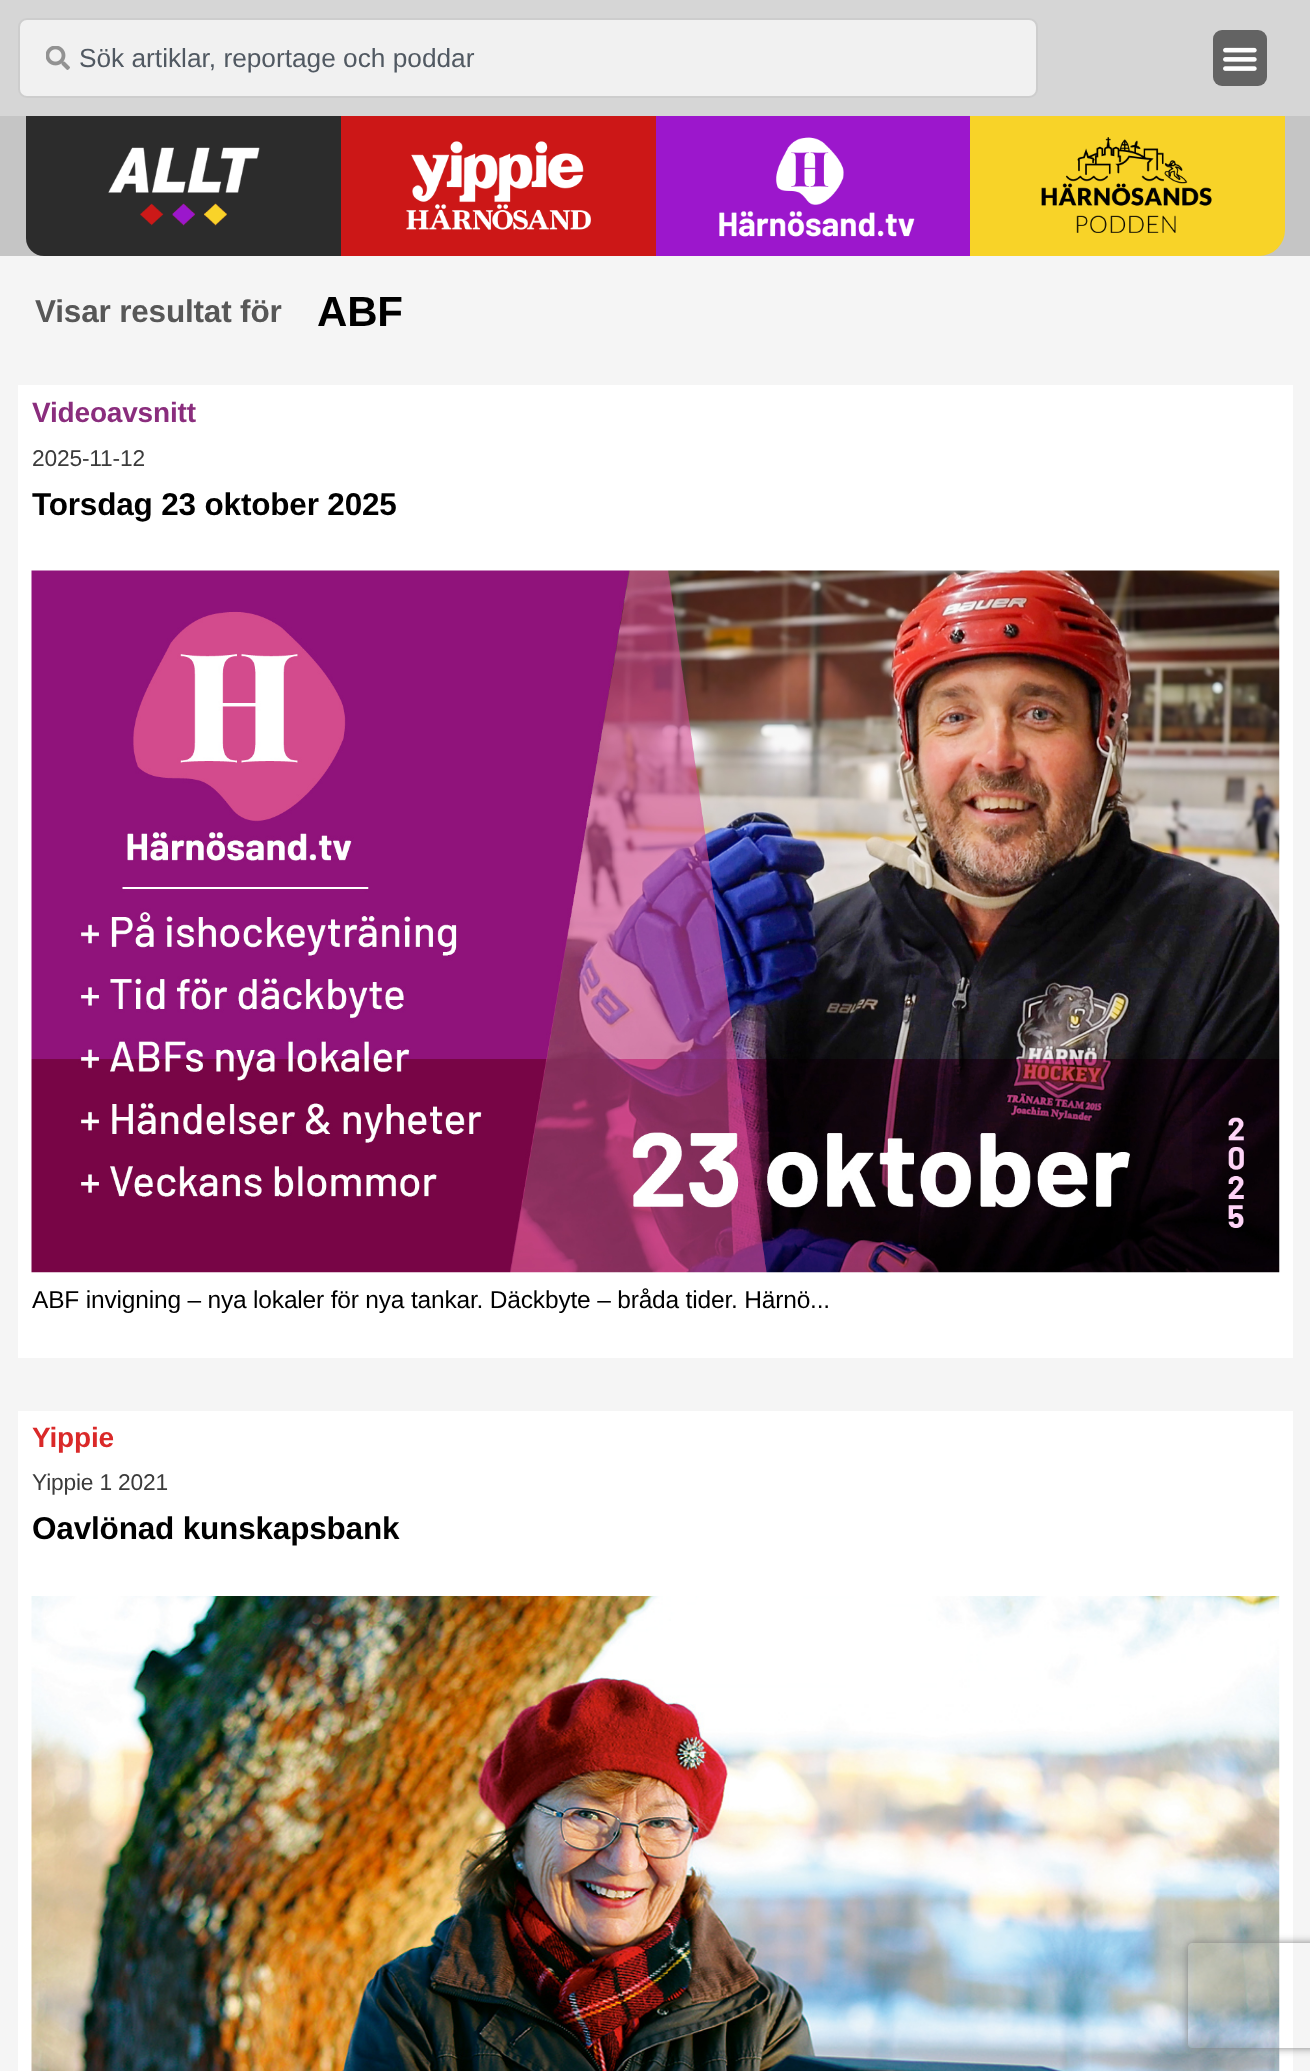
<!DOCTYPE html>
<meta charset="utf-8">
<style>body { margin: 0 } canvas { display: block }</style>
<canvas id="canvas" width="1310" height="2071"></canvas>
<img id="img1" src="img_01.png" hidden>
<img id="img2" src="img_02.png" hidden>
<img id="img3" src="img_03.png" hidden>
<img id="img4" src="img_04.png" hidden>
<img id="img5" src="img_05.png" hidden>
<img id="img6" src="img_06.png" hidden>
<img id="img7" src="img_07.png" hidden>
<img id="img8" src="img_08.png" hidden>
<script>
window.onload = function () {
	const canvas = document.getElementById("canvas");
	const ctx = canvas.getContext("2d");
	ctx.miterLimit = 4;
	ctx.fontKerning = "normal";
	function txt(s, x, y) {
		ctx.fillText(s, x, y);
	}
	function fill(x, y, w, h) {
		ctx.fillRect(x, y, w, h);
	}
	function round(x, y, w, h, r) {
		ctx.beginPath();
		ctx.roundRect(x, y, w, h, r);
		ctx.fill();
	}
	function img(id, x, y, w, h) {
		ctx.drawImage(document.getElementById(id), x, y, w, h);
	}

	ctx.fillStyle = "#F5F5F5";
	fill(0, 0, 1310, 2071);
	ctx.fillStyle = "#D6D6D6";
	fill(0, 0, 1310, 116);
	ctx.fillStyle = "#F1F1F1";
	ctx.beginPath();
	ctx.roundRect(19, 19, 1018, 78, 8);
	ctx.fill();
	ctx.strokeStyle = "#CDCDCD";
	ctx.lineWidth = 2;
	ctx.stroke();
	img("img1", 46, 46, 24, 24);
	ctx.fillStyle = "#636363";
	round(1213, 30, 54, 56, 9);
	img("img2", 1223, 47, 34, 24);
	ctx.fillStyle = "#C5C5C5";
	fill(0, 116, 1310, 140);
	ctx.fillStyle = "#2C2C2C";
	ctx.beginPath();
	ctx.roundRect(26, 116, 315, 140, [0, 0, 0, 18]);
	ctx.fill();
	img("img3", 108, 147, 152, 79);
	ctx.fillStyle = "#CC1717";
	fill(341, 116, 315, 140);
	img("img4", 406, 141, 185, 89);
	ctx.fillStyle = "#9C17CC";
	fill(656, 116, 314, 140);
	img("img5", 719, 137, 196, 100);
	ctx.fillStyle = "#F8D328";
	ctx.beginPath();
	ctx.roundRect(970, 116, 315, 140, [0, 0, 26, 0]);
	ctx.fill();
	img("img6", 1041, 137, 171, 96);
	ctx.fillStyle = "#FFFFFF";
	fill(18, 385, 1275, 973);
	img("img7", 31, 570, 1249, 703);
	fill(18, 1411, 1275, 660);
	img("img8", 31, 1596, 1249, 475);
	ctx.save();
	ctx.beginPath();
	ctx.moveTo(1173, 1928);
	ctx.lineTo(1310, 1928);
	ctx.lineTo(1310, 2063);
	ctx.lineTo(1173, 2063);
	ctx.closePath();
	ctx.moveTo(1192, 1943);
	ctx.lineTo(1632, 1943);
	ctx.bezierCurveTo(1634, 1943, 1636, 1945, 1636, 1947);
	ctx.lineTo(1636, 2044);
	ctx.bezierCurveTo(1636, 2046, 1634, 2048, 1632, 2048);
	ctx.lineTo(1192, 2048);
	ctx.bezierCurveTo(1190, 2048, 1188, 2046, 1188, 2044);
	ctx.lineTo(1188, 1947);
	ctx.bezierCurveTo(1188, 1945, 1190, 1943, 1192, 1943);
	ctx.closePath();
	ctx.clip("evenodd");
	ctx.fillStyle = "#808080";
	ctx.filter = "blur(4.5px)";
	ctx.beginPath();
	ctx.roundRect(1188, 1943, 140, 105, 4);
	ctx.fill();
	ctx.filter = "none";
	ctx.restore();
	ctx.font = "26.25px Liberation Sans";
	ctx.fillStyle = "#515962";
	txt("Sök artiklar, reportage och poddar", 79, 67);
	ctx.letterSpacing = "-0.18px";
	ctx.font = "bold 31.5px Liberation Sans";
	ctx.fillStyle = "#575757";
	txt("Visar resultat för", 35, 322);
	ctx.font = "bold 42px Liberation Sans";
	ctx.fillStyle = "#000000";
	txt("ABF", 317, 326);
	ctx.font = "bold 28px Liberation Sans";
	ctx.fillStyle = "#8A2D7D";
	txt("Videoavsnitt", 32, 422);
	ctx.font = "22.75px Liberation Sans";
	ctx.fillStyle = "#3B3B3B";
	txt("2025-11-12", 32, 466);
	ctx.font = "bold 31.5px Liberation Sans";
	ctx.fillStyle = "#000000";
	txt("Torsdag 23 oktober 2025", 32, 515);
	ctx.font = "24.5px Liberation Sans";
	txt("ABF invigning – nya lokaler för nya tankar. Däckbyte – bråda tider. Härnö...", 32, 1308);
	ctx.font = "bold 28px Liberation Sans";
	ctx.fillStyle = "#DA2929";
	txt("Yippie", 32, 1447);
	ctx.font = "22.75px Liberation Sans";
	ctx.fillStyle = "#3B3B3B";
	txt("Yippie 1 2021", 32, 1490);
	ctx.font = "bold 31.5px Liberation Sans";
	ctx.fillStyle = "#000000";
	txt("Oavlönad kunskapsbank", 32, 1539);
};
</script>
